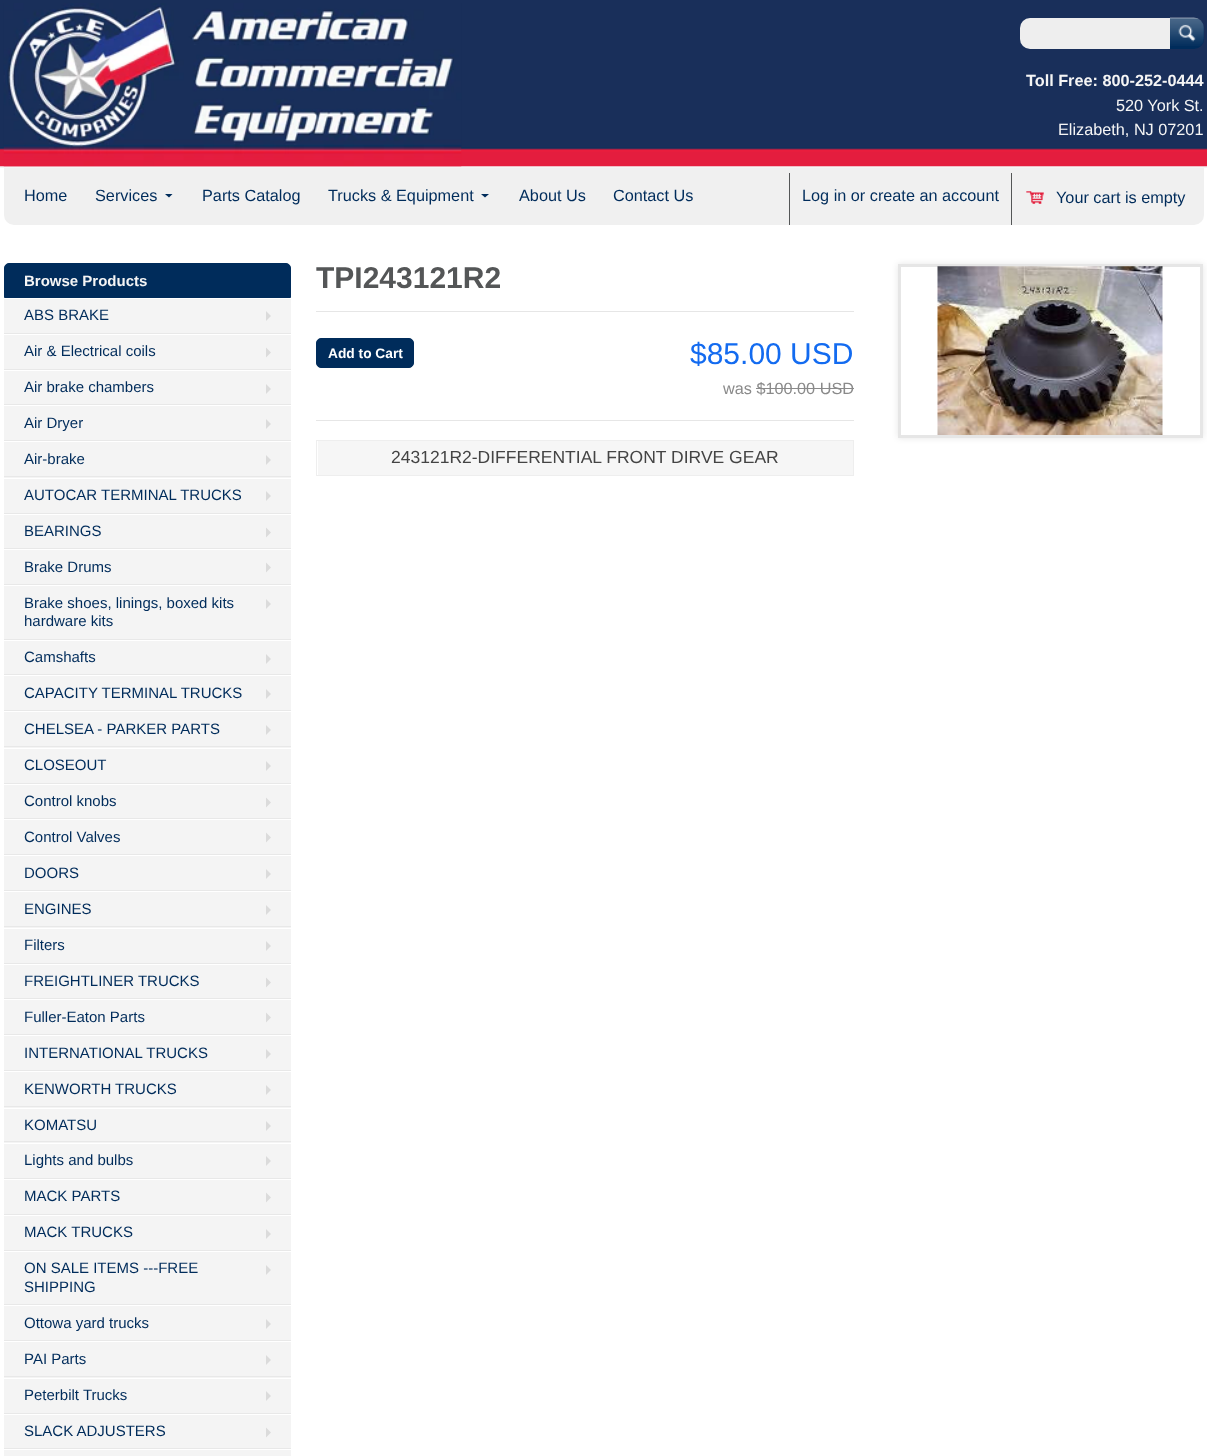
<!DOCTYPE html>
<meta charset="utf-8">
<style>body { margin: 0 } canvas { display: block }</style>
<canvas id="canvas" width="1207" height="1456"></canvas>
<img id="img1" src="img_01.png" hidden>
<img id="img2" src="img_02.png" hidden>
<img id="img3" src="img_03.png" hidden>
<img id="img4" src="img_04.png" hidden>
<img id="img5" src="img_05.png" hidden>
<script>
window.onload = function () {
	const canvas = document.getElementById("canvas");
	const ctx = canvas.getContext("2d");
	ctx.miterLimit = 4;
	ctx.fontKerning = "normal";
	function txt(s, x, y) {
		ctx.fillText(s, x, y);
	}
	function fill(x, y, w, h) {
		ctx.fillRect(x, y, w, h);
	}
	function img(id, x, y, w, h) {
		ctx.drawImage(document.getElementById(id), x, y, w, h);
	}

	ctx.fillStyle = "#F5F5F5";
	fill(0, 0, 1207, 1456);
	img("img1", 0, 0, 1207, 167);
	img("img2", 3, 3, 459, 164);
	ctx.fillStyle = "#EEEEEE";
	ctx.beginPath();
	ctx.roundRect(1020, 18, 150, 31, [10, 0, 0, 10]);
	ctx.fill();
	ctx.fillStyle = "#002C5B";
	ctx.beginPath();
	ctx.roundRect(1170, 18, 34, 31, [0, 10, 10, 0]);
	ctx.fill();
	img("img3", 1170, 17, 34, 29);
	ctx.fillStyle = "#FFFFFF";
	fill(0, 168, 1207, 1288);
	ctx.fillStyle = "#F0F0F0";
	ctx.beginPath();
	ctx.roundRect(4, 168, 1200, 57, [0, 0, 10, 10]);
	ctx.fill();
	ctx.fillStyle = "#002C5B";
	ctx.beginPath();
	ctx.moveTo(165, 194);
	ctx.lineTo(172.5, 194);
	ctx.lineTo(169, 197.5);
	ctx.closePath();
	ctx.fill();
	ctx.beginPath();
	ctx.moveTo(481, 194);
	ctx.lineTo(489, 194);
	ctx.lineTo(485, 197.5);
	ctx.closePath();
	ctx.fill();
	ctx.fillStyle = "#545657";
	fill(789, 173, 1, 52);
	fill(1011, 173, 1, 52);
	img("img4", 1026, 191, 18, 13);
	ctx.fillStyle = "#002C5B";
	ctx.beginPath();
	ctx.roundRect(4.5, 263.5, 286, 34, [4.5, 4.5, 0, 0]);
	ctx.fill();
	ctx.strokeStyle = "#002C5B";
	ctx.stroke();
	ctx.fillStyle = "#F4F4F4";
	fill(4, 299, 287, 34);
	ctx.fillStyle = "#E8E8E8";
	fill(4, 333, 287, 1);
	ctx.fillStyle = "#DBDBDB";
	ctx.beginPath();
	ctx.moveTo(266, 321);
	ctx.lineTo(266, 311);
	ctx.lineTo(271, 316);
	ctx.closePath();
	ctx.fill();
	ctx.fillStyle = "#F4F4F4";
	fill(4, 335, 287, 34);
	ctx.fillStyle = "#E8E8E8";
	fill(4, 369, 287, 1);
	ctx.fillStyle = "#DBDBDB";
	ctx.beginPath();
	ctx.moveTo(266, 357.5);
	ctx.lineTo(266, 347.5);
	ctx.lineTo(271, 352.5);
	ctx.closePath();
	ctx.fill();
	ctx.fillStyle = "#F4F4F4";
	fill(4, 371, 287, 33);
	ctx.fillStyle = "#E8E8E8";
	fill(4, 404, 287, 1);
	ctx.fillStyle = "#DBDBDB";
	ctx.beginPath();
	ctx.moveTo(266, 394);
	ctx.lineTo(266, 384);
	ctx.lineTo(271, 389);
	ctx.closePath();
	ctx.fill();
	ctx.fillStyle = "#F4F4F4";
	fill(4, 406, 287, 34);
	ctx.fillStyle = "#E8E8E8";
	fill(4, 440, 287, 1);
	ctx.fillStyle = "#DBDBDB";
	ctx.beginPath();
	ctx.moveTo(266, 429);
	ctx.lineTo(266, 419);
	ctx.lineTo(271, 424);
	ctx.closePath();
	ctx.fill();
	ctx.fillStyle = "#F4F4F4";
	fill(4, 442, 287, 36);
	ctx.fillStyle = "#E8E8E8";
	fill(4, 476, 287, 1);
	ctx.fillStyle = "#DBDBDB";
	ctx.beginPath();
	ctx.moveTo(266, 465);
	ctx.lineTo(266, 455);
	ctx.lineTo(271, 460);
	ctx.closePath();
	ctx.fill();
	ctx.fillStyle = "#F4F4F4";
	fill(4, 479, 287, 34);
	ctx.fillStyle = "#E8E8E8";
	fill(4, 513, 287, 1);
	ctx.fillStyle = "#DBDBDB";
	ctx.beginPath();
	ctx.moveTo(266, 501);
	ctx.lineTo(266, 491);
	ctx.lineTo(271, 496);
	ctx.closePath();
	ctx.fill();
	ctx.fillStyle = "#F4F4F4";
	fill(4, 515, 287, 33);
	ctx.fillStyle = "#E8E8E8";
	fill(4, 548, 287, 1);
	ctx.fillStyle = "#DBDBDB";
	ctx.beginPath();
	ctx.moveTo(266, 537.5);
	ctx.lineTo(266, 527.5);
	ctx.lineTo(271, 532.5);
	ctx.closePath();
	ctx.fill();
	ctx.fillStyle = "#F4F4F4";
	fill(4, 550, 287, 34);
	ctx.fillStyle = "#E8E8E8";
	fill(4, 584, 287, 1);
	ctx.fillStyle = "#DBDBDB";
	ctx.beginPath();
	ctx.moveTo(266, 572.5);
	ctx.lineTo(266, 562.5);
	ctx.lineTo(271, 567.5);
	ctx.closePath();
	ctx.fill();
	ctx.fillStyle = "#F4F4F4";
	fill(4, 586, 287, 53);
	ctx.fillStyle = "#E8E8E8";
	fill(4, 639, 287, 1);
	ctx.fillStyle = "#DBDBDB";
	ctx.beginPath();
	ctx.moveTo(266, 609);
	ctx.lineTo(266, 599);
	ctx.lineTo(271, 604);
	ctx.closePath();
	ctx.fill();
	ctx.fillStyle = "#F4F4F4";
	fill(4, 641, 287, 33);
	ctx.fillStyle = "#E8E8E8";
	fill(4, 674, 287, 1);
	ctx.fillStyle = "#DBDBDB";
	ctx.beginPath();
	ctx.moveTo(266, 664);
	ctx.lineTo(266, 654);
	ctx.lineTo(271, 659);
	ctx.closePath();
	ctx.fill();
	ctx.fillStyle = "#F4F4F4";
	fill(4, 676, 287, 34);
	ctx.fillStyle = "#E8E8E8";
	fill(4, 710, 287, 1);
	ctx.fillStyle = "#DBDBDB";
	ctx.beginPath();
	ctx.moveTo(266, 699);
	ctx.lineTo(266, 689);
	ctx.lineTo(271, 694);
	ctx.closePath();
	ctx.fill();
	ctx.fillStyle = "#F4F4F4";
	fill(4, 712, 287, 36);
	ctx.fillStyle = "#E8E8E8";
	fill(4, 746, 287, 1);
	ctx.fillStyle = "#DBDBDB";
	ctx.beginPath();
	ctx.moveTo(266, 735);
	ctx.lineTo(266, 725);
	ctx.lineTo(271, 730);
	ctx.closePath();
	ctx.fill();
	ctx.fillStyle = "#F4F4F4";
	fill(4, 749, 287, 34);
	ctx.fillStyle = "#E8E8E8";
	fill(4, 783, 287, 1);
	ctx.fillStyle = "#DBDBDB";
	ctx.beginPath();
	ctx.moveTo(266, 771);
	ctx.lineTo(266, 761);
	ctx.lineTo(271, 766);
	ctx.closePath();
	ctx.fill();
	ctx.fillStyle = "#F4F4F4";
	fill(4, 785, 287, 33);
	ctx.fillStyle = "#E8E8E8";
	fill(4, 818, 287, 1);
	ctx.fillStyle = "#DBDBDB";
	ctx.beginPath();
	ctx.moveTo(266, 807.5);
	ctx.lineTo(266, 797.5);
	ctx.lineTo(271, 802.5);
	ctx.closePath();
	ctx.fill();
	ctx.fillStyle = "#F4F4F4";
	fill(4, 820, 287, 34);
	ctx.fillStyle = "#E8E8E8";
	fill(4, 854, 287, 1);
	ctx.fillStyle = "#DBDBDB";
	ctx.beginPath();
	ctx.moveTo(266, 842.5);
	ctx.lineTo(266, 832.5);
	ctx.lineTo(271, 837.5);
	ctx.closePath();
	ctx.fill();
	ctx.fillStyle = "#F4F4F4";
	fill(4, 856, 287, 34);
	ctx.fillStyle = "#E8E8E8";
	fill(4, 890, 287, 1);
	ctx.fillStyle = "#DBDBDB";
	ctx.beginPath();
	ctx.moveTo(266, 879);
	ctx.lineTo(266, 869);
	ctx.lineTo(271, 874);
	ctx.closePath();
	ctx.fill();
	ctx.fillStyle = "#F4F4F4";
	fill(4, 892, 287, 36);
	ctx.fillStyle = "#E8E8E8";
	fill(4, 926, 287, 1);
	ctx.fillStyle = "#DBDBDB";
	ctx.beginPath();
	ctx.moveTo(266, 915);
	ctx.lineTo(266, 905);
	ctx.lineTo(271, 910);
	ctx.closePath();
	ctx.fill();
	ctx.fillStyle = "#F4F4F4";
	fill(4, 929, 287, 34);
	ctx.fillStyle = "#E8E8E8";
	fill(4, 963, 287, 1);
	ctx.fillStyle = "#DBDBDB";
	ctx.beginPath();
	ctx.moveTo(266, 951);
	ctx.lineTo(266, 941);
	ctx.lineTo(271, 946);
	ctx.closePath();
	ctx.fill();
	ctx.fillStyle = "#F4F4F4";
	fill(4, 965, 287, 33);
	ctx.fillStyle = "#E8E8E8";
	fill(4, 998, 287, 1);
	ctx.fillStyle = "#DBDBDB";
	ctx.beginPath();
	ctx.moveTo(266, 987.5);
	ctx.lineTo(266, 977.5);
	ctx.lineTo(271, 982.5);
	ctx.closePath();
	ctx.fill();
	ctx.fillStyle = "#F4F4F4";
	fill(4, 1000, 287, 34);
	ctx.fillStyle = "#E8E8E8";
	fill(4, 1034, 287, 1);
	ctx.fillStyle = "#DBDBDB";
	ctx.beginPath();
	ctx.moveTo(266, 1022.5);
	ctx.lineTo(266, 1012.5);
	ctx.lineTo(271, 1017.5);
	ctx.closePath();
	ctx.fill();
	ctx.fillStyle = "#F4F4F4";
	fill(4, 1036, 287, 34);
	ctx.fillStyle = "#E8E8E8";
	fill(4, 1070, 287, 1);
	ctx.fillStyle = "#DBDBDB";
	ctx.beginPath();
	ctx.moveTo(266, 1059);
	ctx.lineTo(266, 1049);
	ctx.lineTo(271, 1054);
	ctx.closePath();
	ctx.fill();
	ctx.fillStyle = "#F4F4F4";
	fill(4, 1072, 287, 36);
	ctx.fillStyle = "#E8E8E8";
	fill(4, 1106, 287, 1);
	ctx.fillStyle = "#DBDBDB";
	ctx.beginPath();
	ctx.moveTo(266, 1095);
	ctx.lineTo(266, 1085);
	ctx.lineTo(271, 1090);
	ctx.closePath();
	ctx.fill();
	ctx.fillStyle = "#F4F4F4";
	fill(4, 1109, 287, 34);
	ctx.fillStyle = "#E8E8E8";
	fill(4, 1141, 287, 1);
	ctx.fillStyle = "#DBDBDB";
	ctx.beginPath();
	ctx.moveTo(266, 1131);
	ctx.lineTo(266, 1121);
	ctx.lineTo(271, 1126);
	ctx.closePath();
	ctx.fill();
	ctx.fillStyle = "#F4F4F4";
	fill(4, 1144, 287, 34);
	ctx.fillStyle = "#E8E8E8";
	fill(4, 1178, 287, 1);
	ctx.fillStyle = "#DBDBDB";
	ctx.beginPath();
	ctx.moveTo(266, 1166);
	ctx.lineTo(266, 1156);
	ctx.lineTo(271, 1161);
	ctx.closePath();
	ctx.fill();
	ctx.fillStyle = "#F4F4F4";
	fill(4, 1180, 287, 34);
	ctx.fillStyle = "#E8E8E8";
	fill(4, 1214, 287, 1);
	ctx.fillStyle = "#DBDBDB";
	ctx.beginPath();
	ctx.moveTo(266, 1202.5);
	ctx.lineTo(266, 1192.5);
	ctx.lineTo(271, 1197.5);
	ctx.closePath();
	ctx.fill();
	ctx.fillStyle = "#F4F4F4";
	fill(4, 1216, 287, 34);
	ctx.fillStyle = "#E8E8E8";
	fill(4, 1250, 287, 1);
	ctx.fillStyle = "#DBDBDB";
	ctx.beginPath();
	ctx.moveTo(266, 1239);
	ctx.lineTo(266, 1229);
	ctx.lineTo(271, 1234);
	ctx.closePath();
	ctx.fill();
	ctx.fillStyle = "#F4F4F4";
	fill(4, 1252, 287, 52);
	ctx.fillStyle = "#E8E8E8";
	fill(4, 1304, 287, 1);
	ctx.fillStyle = "#DBDBDB";
	ctx.beginPath();
	ctx.moveTo(266, 1275);
	ctx.lineTo(266, 1265);
	ctx.lineTo(271, 1270);
	ctx.closePath();
	ctx.fill();
	ctx.fillStyle = "#F4F4F4";
	fill(4, 1306, 287, 34);
	ctx.fillStyle = "#E8E8E8";
	fill(4, 1340, 287, 1);
	ctx.fillStyle = "#DBDBDB";
	ctx.beginPath();
	ctx.moveTo(266, 1329);
	ctx.lineTo(266, 1319);
	ctx.lineTo(271, 1324);
	ctx.closePath();
	ctx.fill();
	ctx.fillStyle = "#F4F4F4";
	fill(4, 1342, 287, 36);
	ctx.fillStyle = "#E8E8E8";
	fill(4, 1376, 287, 1);
	ctx.fillStyle = "#DBDBDB";
	ctx.beginPath();
	ctx.moveTo(266, 1365);
	ctx.lineTo(266, 1355);
	ctx.lineTo(271, 1360);
	ctx.closePath();
	ctx.fill();
	ctx.fillStyle = "#F4F4F4";
	fill(4, 1379, 287, 34);
	ctx.fillStyle = "#E8E8E8";
	fill(4, 1413, 287, 1);
	ctx.fillStyle = "#DBDBDB";
	ctx.beginPath();
	ctx.moveTo(266, 1401);
	ctx.lineTo(266, 1391);
	ctx.lineTo(271, 1396);
	ctx.closePath();
	ctx.fill();
	ctx.fillStyle = "#F4F4F4";
	fill(4, 1415, 287, 33);
	ctx.fillStyle = "#E8E8E8";
	fill(4, 1448, 287, 1);
	ctx.fillStyle = "#DBDBDB";
	ctx.beginPath();
	ctx.moveTo(266, 1437.5);
	ctx.lineTo(266, 1427.5);
	ctx.lineTo(271, 1432.5);
	ctx.closePath();
	ctx.fill();
	ctx.fillStyle = "#F4F4F4";
	fill(4, 1450, 287, 6);
	ctx.fillStyle = "#E6E6E6";
	fill(316, 311, 538, 1);
	fill(316, 420, 538, 1);
	ctx.fillStyle = "#002C5B";
	ctx.beginPath();
	ctx.roundRect(316.5, 338.5, 97, 29, 4.5);
	ctx.fill();
	ctx.stroke();
	ctx.fillStyle = "#8A8A8A";
	fill(756, 388, 98, 1);
	ctx.fillStyle = "#F6F6F6";
	fill(318, 441, 535, 34);
	ctx.fillStyle = "#EEEEEE";
	fill(316, 440, 538, 1);
	fill(853, 440, 1, 36);
	fill(316, 475, 538, 1);
	fill(316, 440, 1, 36);
	ctx.save();
	ctx.beginPath();
	ctx.moveTo(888, 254);
	ctx.lineTo(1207, 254);
	ctx.lineTo(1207, 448);
	ctx.lineTo(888, 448);
	ctx.closePath();
	ctx.moveTo(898, 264);
	ctx.lineTo(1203, 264);
	ctx.lineTo(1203, 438);
	ctx.lineTo(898, 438);
	ctx.closePath();
	ctx.clip("evenodd");
	ctx.fillStyle = "rgba(0, 0, 0, 0.1)";
	ctx.filter = "blur(3px)";
	ctx.beginPath();
	ctx.rect(898, 264, 305, 174);
	ctx.fill();
	ctx.filter = "none";
	ctx.restore();
	ctx.strokeStyle = "#E6E6E6";
	ctx.lineWidth = 3;
	ctx.strokeRect(899.5, 265.5, 302, 171);
	img("img5", 937, 266, 226, 169);
	ctx.font = "bold 16.25px Liberation Sans";
	ctx.fillStyle = "#F5F5F5";
	txt("Toll Free: 800-252-0444", 1026, 86);
	ctx.font = "16.25px Liberation Sans";
	txt("520 York St.", 1116, 111);
	txt("Elizabeth, NJ 07201", 1058, 135);
	ctx.fillStyle = "#002C5B";
	txt("Home", 24, 201);
	txt("Services", 95, 201);
	txt("Parts Catalog", 202, 201);
	txt("Trucks & Equipment", 328, 201);
	txt("About Us", 519, 201);
	txt("Contact Us", 613, 201);
	txt("Log in or create an account", 802, 201);
	txt("Your cart is empty", 1056, 203);
	ctx.font = "bold 15px Liberation Sans";
	ctx.fillStyle = "#F5F5F5";
	txt("Browse Products", 24, 286);
	ctx.font = "15px Liberation Sans";
	ctx.fillStyle = "#002C5B";
	txt("ABS BRAKE", 24, 320);
	txt("Air & Electrical coils", 24, 356);
	txt("Air brake chambers", 24, 392);
	txt("Air Dryer", 24, 428);
	txt("Air-brake", 24, 464);
	txt("AUTOCAR TERMINAL TRUCKS", 24, 500);
	txt("BEARINGS", 24, 536);
	txt("Brake Drums", 24, 572);
	txt("Brake shoes, linings, boxed kits", 24, 608);
	txt("hardware kits", 24, 626);
	txt("Camshafts", 24, 662);
	txt("CAPACITY TERMINAL TRUCKS", 24, 698);
	txt("CHELSEA - PARKER PARTS", 24, 734);
	txt("CLOSEOUT", 24, 770);
	txt("Control knobs", 24, 806);
	txt("Control Valves", 24, 842);
	txt("DOORS", 24, 878);
	txt("ENGINES", 24, 914);
	txt("Filters", 24, 950);
	txt("FREIGHTLINER TRUCKS", 24, 986);
	txt("Fuller-Eaton Parts", 24, 1022);
	txt("INTERNATIONAL TRUCKS", 24, 1058);
	txt("KENWORTH TRUCKS", 24, 1094);
	txt("KOMATSU", 24, 1130);
	txt("Lights and bulbs", 24, 1165);
	txt("MACK PARTS", 24, 1201);
	txt("MACK TRUCKS", 24, 1237);
	txt("ON SALE ITEMS ---FREE", 24, 1273);
	txt("SHIPPING", 24, 1292);
	txt("Ottowa yard trucks", 24, 1328);
	txt("PAI Parts", 24, 1364);
	txt("Peterbilt Trucks", 24, 1400);
	txt("SLACK ADJUSTERS", 24, 1436);
	ctx.font = "bold 30px Liberation Sans";
	ctx.fillStyle = "#545657";
	txt("TPI243121R2", 316, 288);
	ctx.font = "bold 13.75px Liberation Sans";
	ctx.fillStyle = "#FFFFFF";
	txt("Add to Cart", 328, 358);
	ctx.font = "30px Liberation Sans";
	ctx.fillStyle = "#136BF0";
	txt("$85.00 USD", 690, 364);
	ctx.font = "16.25px Liberation Sans";
	ctx.fillStyle = "#8A8A8A";
	txt("was $100.00 USD", 723, 394);
	ctx.font = "17.5px Liberation Sans";
	ctx.fillStyle = "#444444";
	txt("243121R2-DIFFERENTIAL FRONT DIRVE GEAR", 391, 463);
};
</script>
